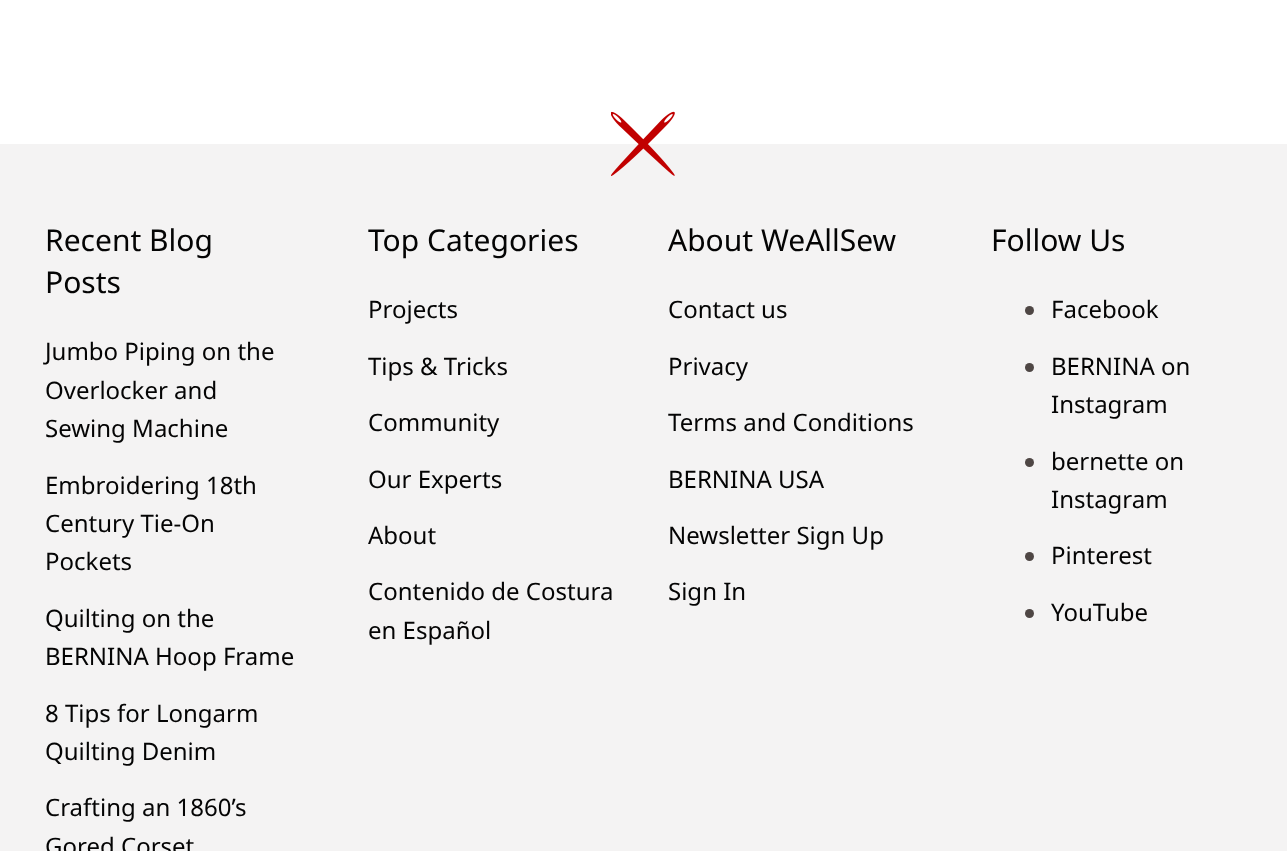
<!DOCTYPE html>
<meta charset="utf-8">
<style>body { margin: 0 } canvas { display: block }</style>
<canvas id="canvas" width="1287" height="851"></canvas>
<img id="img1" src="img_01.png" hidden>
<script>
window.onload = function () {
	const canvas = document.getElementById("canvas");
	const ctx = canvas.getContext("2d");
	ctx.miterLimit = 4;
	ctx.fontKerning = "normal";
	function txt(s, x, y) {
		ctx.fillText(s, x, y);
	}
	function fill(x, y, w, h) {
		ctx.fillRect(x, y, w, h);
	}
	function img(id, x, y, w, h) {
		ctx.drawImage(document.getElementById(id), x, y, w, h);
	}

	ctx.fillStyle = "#FFFFFF";
	fill(0, 0, 1287, 851);
	ctx.fillStyle = "#F4F3F3";
	fill(0, 144, 1287, 707);
	img("img1", 611, 111, 64, 65);
	ctx.fillStyle = "#4E4644";
	ctx.beginPath();
	ctx.arc(1029.5, 310.5, 4.5, 0, Math.PI * 2);
	ctx.fill();
	ctx.beginPath();
	ctx.arc(1029.5, 367.5, 4.5, 0, Math.PI * 2);
	ctx.fill();
	ctx.beginPath();
	ctx.arc(1029.5, 462.5, 4.5, 0, Math.PI * 2);
	ctx.fill();
	ctx.beginPath();
	ctx.arc(1029.5, 556.5, 4.5, 0, Math.PI * 2);
	ctx.fill();
	ctx.beginPath();
	ctx.arc(1029.5, 613.5, 4.5, 0, Math.PI * 2);
	ctx.fill();
	ctx.font = "30px Noto Sans";
	ctx.fillStyle = "#040404";
	txt("Recent Blog", 45, 251);
	txt("Posts", 45, 293);
	ctx.font = "24px Noto Sans";
	txt("Jumbo Piping on the", 45, 360);
	txt("Overlocker and", 45, 399);
	txt("Sewing Machine", 45, 437);
	txt("Embroidering 18th", 45, 494);
	txt("Century Tie-On", 45, 532);
	txt("Pockets", 45, 570);
	txt("Quilting on the", 45, 627);
	txt("BERNINA Hoop Frame", 45, 665);
	txt("8 Tips for Longarm", 45, 722);
	txt("Quilting Denim", 45, 760);
	txt("Crafting an 1860’s", 45, 816);
	txt("Gored Corset", 45, 855);
	ctx.font = "30px Noto Sans";
	txt("Top Categories", 368, 251);
	ctx.font = "24px Noto Sans";
	txt("Projects", 368, 318);
	txt("Tips & Tricks", 368, 375);
	txt("Community", 368, 431);
	txt("Our Experts", 368, 488);
	txt("About", 368, 544);
	txt("Contenido de Costura", 368, 600);
	txt("en Español", 368, 639);
	ctx.font = "30px Noto Sans";
	txt("About WeAllSew", 668, 251);
	ctx.font = "24px Noto Sans";
	txt("Contact us", 668, 318);
	txt("Privacy", 668, 375);
	txt("Terms and Conditions", 668, 431);
	txt("BERNINA USA", 668, 488);
	txt("Newsletter Sign Up", 668, 544);
	txt("Sign In", 668, 600);
	ctx.font = "30px Noto Sans";
	txt("Follow Us", 991, 251);
	ctx.font = "24px Noto Sans";
	txt("Facebook", 1051, 318);
	txt("BERNINA on", 1051, 375);
	txt("Instagram", 1051, 413);
	txt("bernette on", 1051, 470);
	txt("Instagram", 1051, 508);
	txt("Pinterest", 1051, 564);
	txt("YouTube", 1051, 621);
};
</script>
